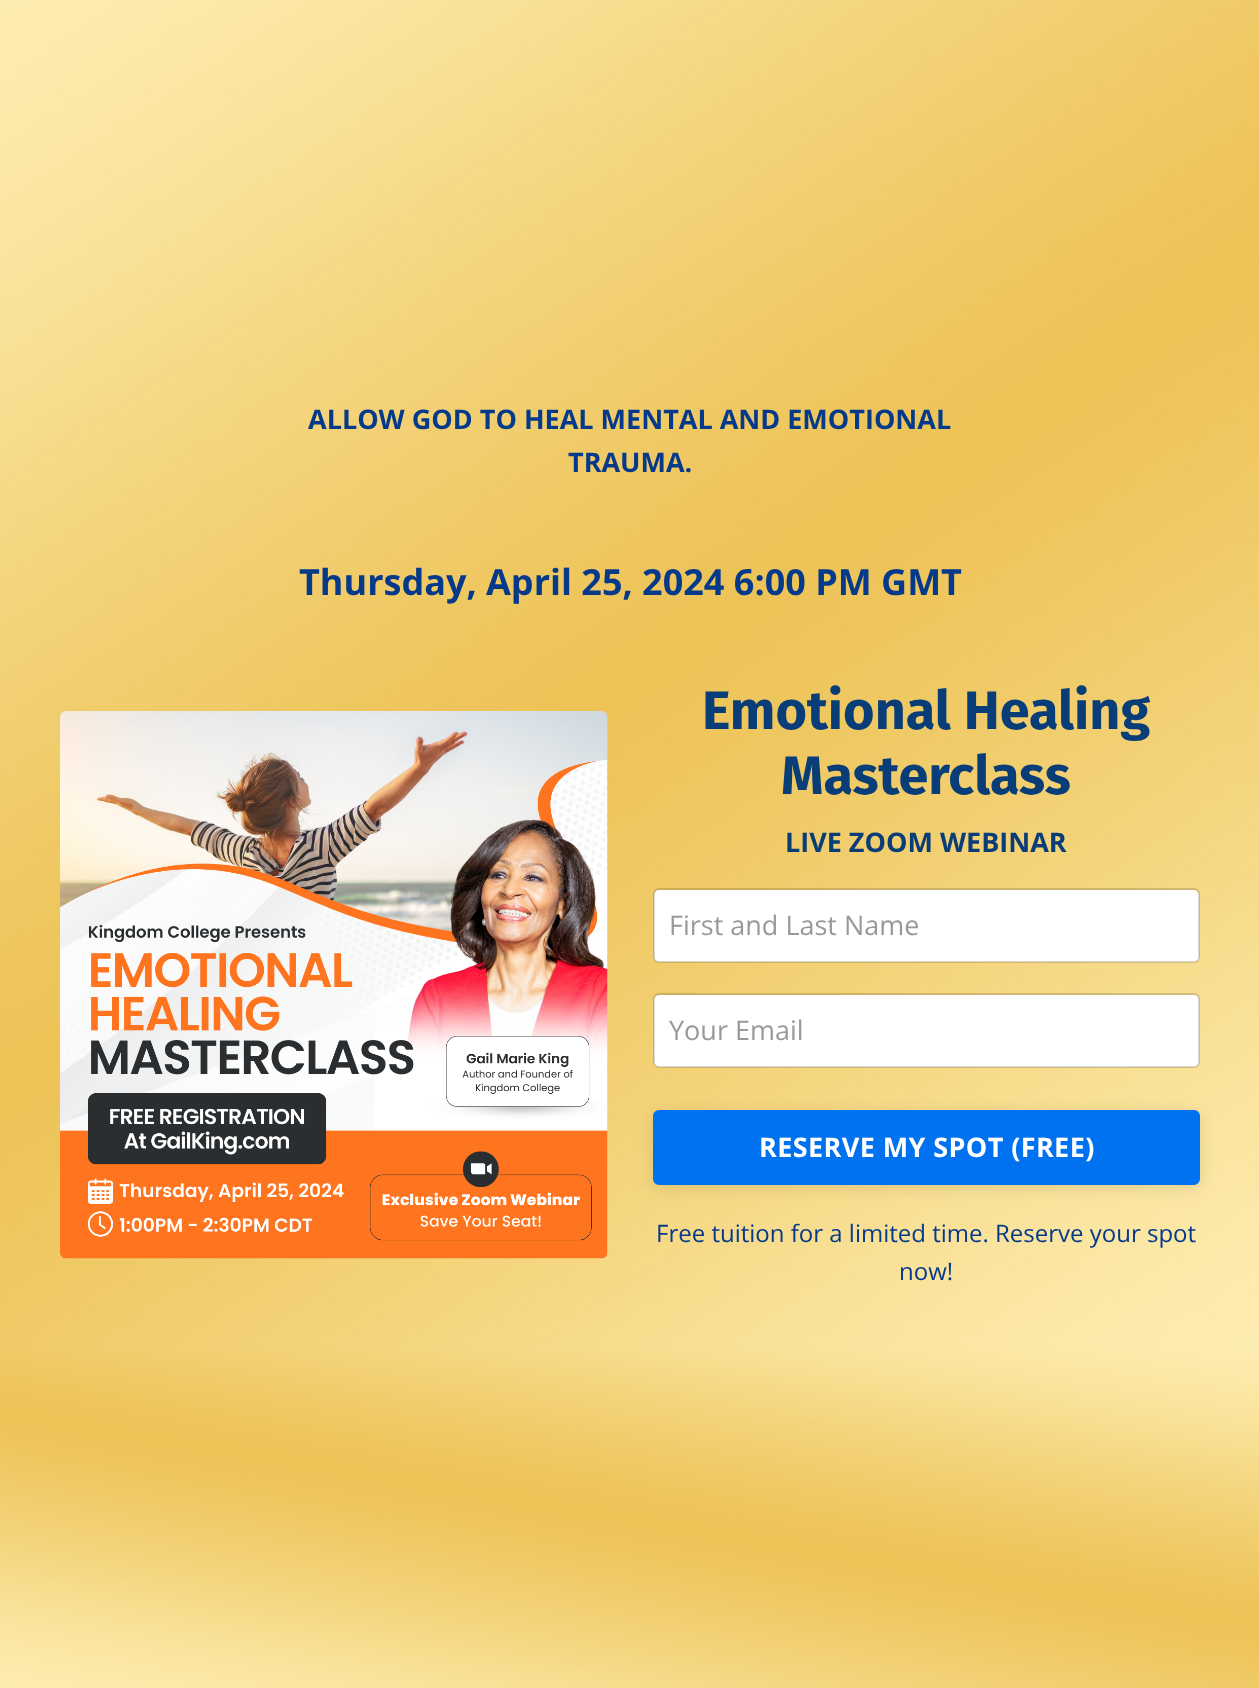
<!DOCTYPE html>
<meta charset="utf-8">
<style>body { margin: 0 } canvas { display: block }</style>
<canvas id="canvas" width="1259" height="1688"></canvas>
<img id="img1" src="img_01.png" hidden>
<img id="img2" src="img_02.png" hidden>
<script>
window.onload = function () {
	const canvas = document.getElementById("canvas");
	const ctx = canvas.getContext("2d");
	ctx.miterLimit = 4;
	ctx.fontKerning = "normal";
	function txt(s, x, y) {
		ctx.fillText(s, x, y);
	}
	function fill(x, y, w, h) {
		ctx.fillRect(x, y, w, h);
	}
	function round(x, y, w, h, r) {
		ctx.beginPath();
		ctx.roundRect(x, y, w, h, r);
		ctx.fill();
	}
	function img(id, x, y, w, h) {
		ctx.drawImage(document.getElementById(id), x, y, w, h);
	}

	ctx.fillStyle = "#FFFFFF";
	fill(0, 0, 1259, 1688);
	img("img1", 0, 0, 1259, 1688);
	img("img2", 60, 711, 548, 548);
	round(654, 890, 545, 72, 5);
	ctx.beginPath();
	ctx.roundRect(654, 889, 545, 73, 5);
	ctx.strokeStyle = "rgba(0, 0, 0, 0.15)";
	ctx.lineWidth = 2;
	ctx.stroke();
	round(654, 995, 545, 72, 5);
	ctx.beginPath();
	ctx.roundRect(654, 994, 545, 73, 5);
	ctx.stroke();
	ctx.fillStyle = "rgba(0, 0, 0, 0.1)";
	ctx.filter = "blur(7.5px)";
	ctx.beginPath();
	ctx.roundRect(653, 1113, 547, 75, 6);
	ctx.fill();
	ctx.filter = "none";
	ctx.fillStyle = "#0072EF";
	ctx.beginPath();
	ctx.roundRect(654.5, 1111.5, 544, 72, 4.5);
	ctx.fill();
	ctx.strokeStyle = "#0072EF";
	ctx.lineWidth = 3;
	ctx.stroke();
	ctx.font = "bold 27px Open Sans";
	ctx.fillStyle = "#053A8B";
	txt("ALLOW GOD TO HEAL MENTAL AND EMOTIONAL", 308, 429);
	txt("TRAUMA.", 568, 472);
	ctx.font = "bold 36px Open Sans";
	txt("Thursday, April 25, 2024 6:00 PM GMT", 299, 595);
	ctx.font = "bold 54px Fira Sans";
	ctx.fillStyle = "#083D77";
	txt("Emotional Healing", 702, 729);
	txt("Masterclass", 781, 794);
	ctx.font = "bold 27px Open Sans";
	txt("LIVE ZOOM WEBINAR", 785, 852);
	ctx.font = "27px Open Sans";
	ctx.fillStyle = "#999999";
	txt("First and Last Name", 669, 935);
	txt("Your Email", 669, 1040);
	ctx.letterSpacing = "0.4px";
	ctx.font = "bold 27px Open Sans";
	ctx.fillStyle = "#FFFFFF";
	txt("RESERVE MY SPOT (FREE)", 759, 1157);
	ctx.letterSpacing = "0px";
	ctx.font = "24px Open Sans";
	ctx.fillStyle = "#053A8B";
	txt("Free tuition for a limited time. Reserve your spot", 656, 1242);
	txt("now!", 899, 1280);
};
</script>
